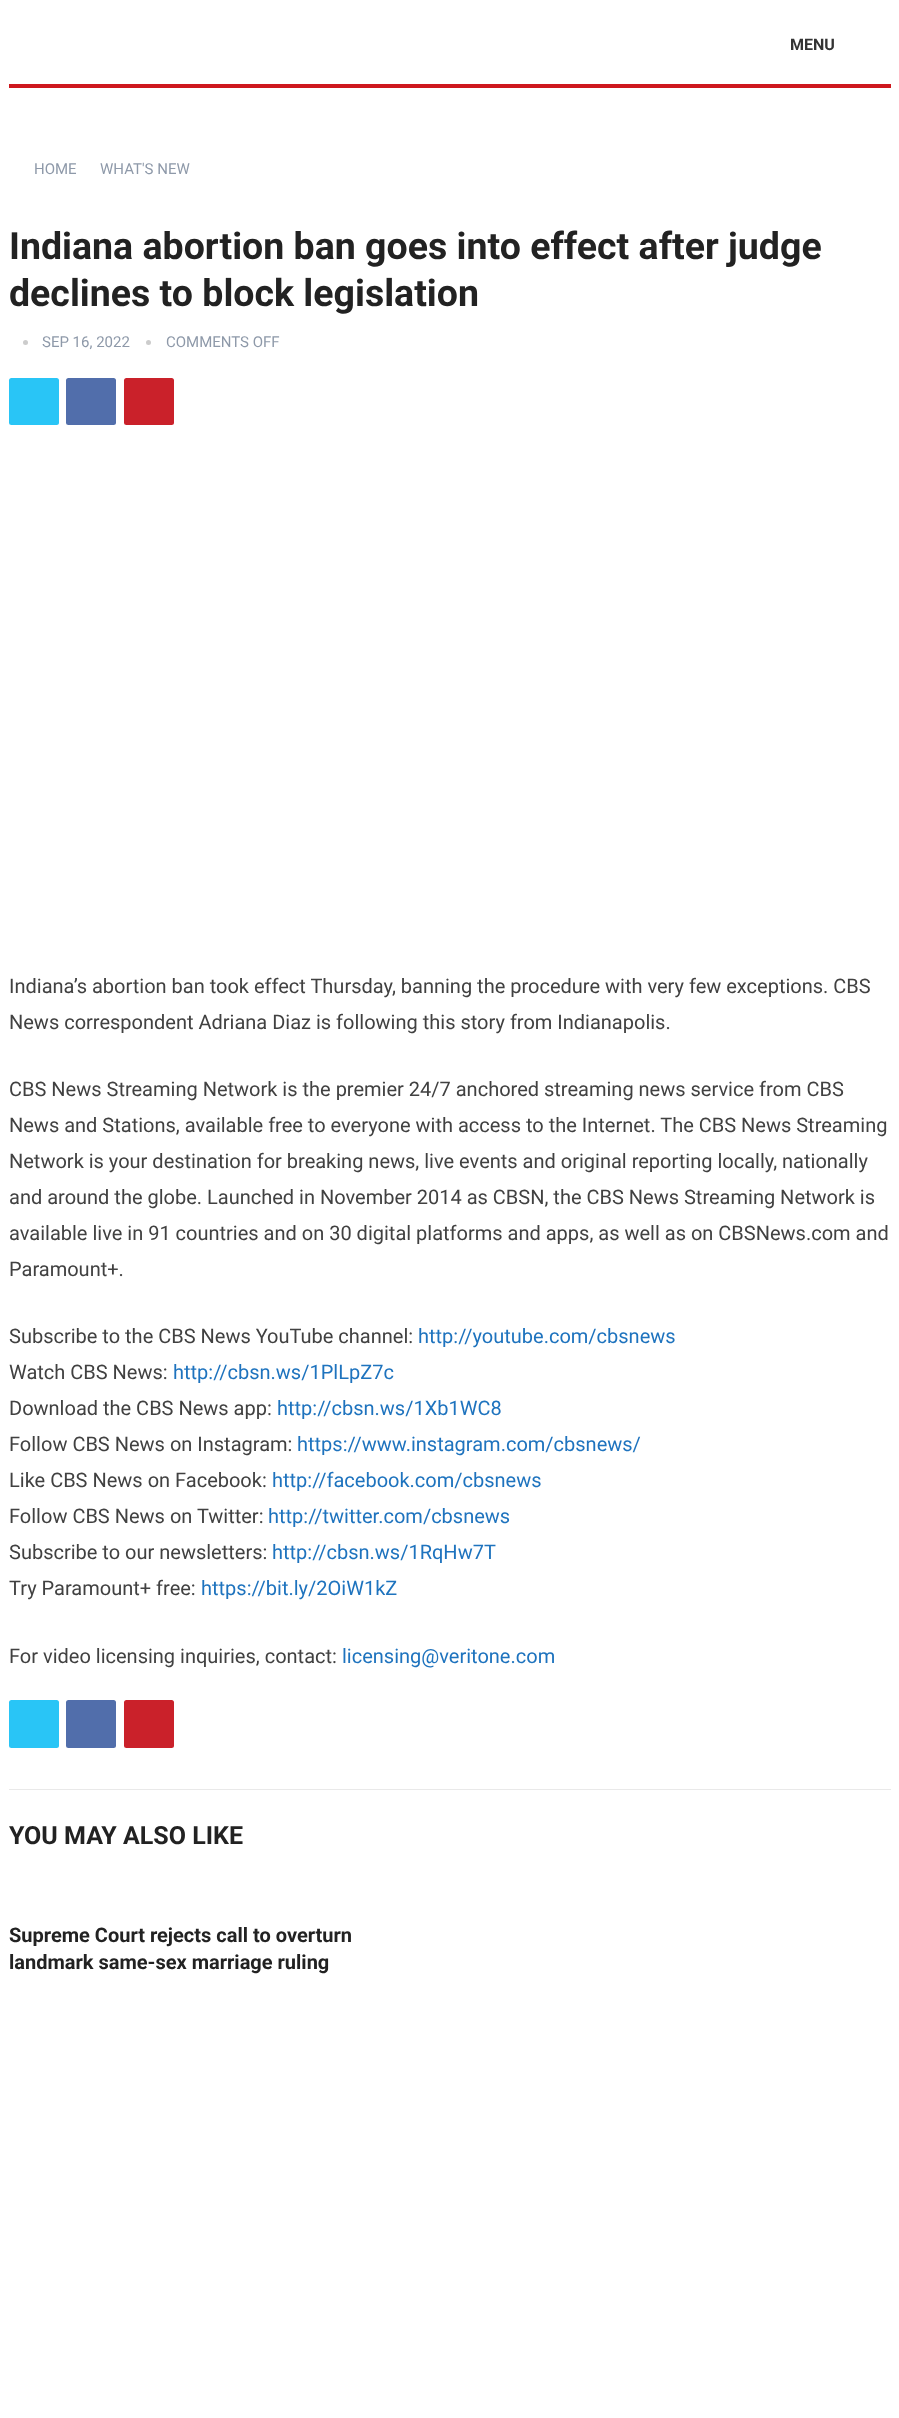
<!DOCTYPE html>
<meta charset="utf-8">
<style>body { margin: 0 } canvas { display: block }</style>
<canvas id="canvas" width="899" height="2418"></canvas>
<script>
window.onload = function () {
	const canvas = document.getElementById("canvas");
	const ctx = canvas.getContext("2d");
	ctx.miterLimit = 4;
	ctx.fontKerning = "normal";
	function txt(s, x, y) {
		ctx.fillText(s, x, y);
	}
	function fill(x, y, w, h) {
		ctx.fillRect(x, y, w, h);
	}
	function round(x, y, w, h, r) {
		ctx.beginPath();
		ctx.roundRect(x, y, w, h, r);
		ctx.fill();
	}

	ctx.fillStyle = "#FFFFFF";
	fill(0, 0, 899, 2418);
	ctx.fillStyle = "#CE181E";
	fill(9, 84, 882, 4);
	ctx.fillStyle = "#CCCCCC";
	ctx.beginPath();
	ctx.arc(25.5, 342.5, 2.5, 0, Math.PI * 2);
	ctx.fill();
	ctx.beginPath();
	ctx.arc(148.5, 342.5, 2.5, 0, Math.PI * 2);
	ctx.fill();
	ctx.fillStyle = "#29C5F6";
	round(9, 378, 50, 47, 2.5);
	ctx.fillStyle = "#516EAB";
	round(66, 378, 50, 47, 2.5);
	ctx.fillStyle = "#CA212A";
	round(124, 378, 50, 47, 2.5);
	ctx.fillStyle = "#29C5F6";
	round(9, 1700, 50, 48, 2.5);
	ctx.fillStyle = "#516EAB";
	round(66, 1700, 50, 48, 2.5);
	ctx.fillStyle = "#CA212A";
	round(124, 1700, 50, 48, 2.5);
	ctx.fillStyle = "#E9E9E9";
	fill(9, 1789, 882, 1);
	ctx.font = "bold 16px Roboto";
	ctx.fillStyle = "#333333";
	txt("MENU", 790, 50);
	ctx.font = "15px Roboto";
	ctx.fillStyle = "#8E99A9";
	txt("HOME", 34, 174);
	txt("WHAT'S NEW", 100, 174);
	ctx.font = "bold 37.5px Roboto";
	ctx.fillStyle = "#222222";
	txt("Indiana abortion ban goes into effect after judge", 9, 259);
	txt("declines to block legislation", 9, 306);
	ctx.font = "15px Roboto";
	ctx.fillStyle = "#8E99A9";
	txt("SEP 16, 2022", 42, 347);
	txt("COMMENTS OFF", 166, 347);
	ctx.font = "20px Roboto";
	ctx.fillStyle = "#414141";
	txt("Indiana’s abortion ban took effect Thursday, banning the procedure with very few exceptions. CBS", 9, 993);
	txt("News correspondent Adriana Diaz is following this story from Indianapolis.", 9, 1029);
	txt("CBS News Streaming Network is the premier 24/7 anchored streaming news service from CBS", 9, 1096);
	txt("News and Stations, available free to everyone with access to the Internet. The CBS News Streaming", 9, 1132);
	txt("Network is your destination for breaking news, live events and original reporting locally, nationally", 9, 1168);
	txt("and around the globe. Launched in November 2014 as CBSN, the CBS News Streaming Network is", 9, 1204);
	txt("available live in 91 countries and on 30 digital platforms and apps, as well as on CBSNews.com and", 9, 1240);
	txt("Paramount+.", 9, 1276);
	txt("Subscribe to the CBS News YouTube channel:", 9, 1343);
	ctx.fillStyle = "#1E73BE";
	txt("http://youtube.com/cbsnews", 418, 1343);
	ctx.fillStyle = "#414141";
	txt("Watch CBS News:", 9, 1379);
	ctx.fillStyle = "#1E73BE";
	txt("http://cbsn.ws/1PlLpZ7c", 173, 1379);
	ctx.fillStyle = "#414141";
	txt("Download the CBS News app:", 9, 1415);
	ctx.fillStyle = "#1E73BE";
	txt("http://cbsn.ws/1Xb1WC8", 277, 1415);
	ctx.fillStyle = "#414141";
	txt("Follow CBS News on Instagram:", 9, 1451);
	ctx.fillStyle = "#1E73BE";
	txt("https://www.instagram.com/cbsnews/", 297, 1451);
	ctx.fillStyle = "#414141";
	txt("Like CBS News on Facebook:", 9, 1487);
	ctx.fillStyle = "#1E73BE";
	txt("http://facebook.com/cbsnews", 272, 1487);
	ctx.fillStyle = "#414141";
	txt("Follow CBS News on Twitter:", 9, 1523);
	ctx.fillStyle = "#1E73BE";
	txt("http://twitter.com/cbsnews", 268, 1523);
	ctx.fillStyle = "#414141";
	txt("Subscribe to our newsletters:", 9, 1559);
	ctx.fillStyle = "#1E73BE";
	txt("http://cbsn.ws/1RqHw7T", 272, 1559);
	ctx.fillStyle = "#414141";
	txt("Try Paramount+ free:", 9, 1595);
	ctx.fillStyle = "#1E73BE";
	txt("https://bit.ly/2OiW1kZ", 201, 1595);
	ctx.fillStyle = "#414141";
	txt("For video licensing inquiries, contact:", 9, 1663);
	ctx.fillStyle = "#1E73BE";
	txt("licensing@veritone.com", 342, 1663);
	ctx.font = "bold 25px Roboto";
	ctx.fillStyle = "#222222";
	txt("YOU MAY ALSO LIKE", 9, 1844);
	ctx.font = "bold 20px Roboto";
	txt("Supreme Court rejects call to overturn", 9, 1942);
	txt("landmark same-sex marriage ruling", 9, 1969);
};
</script>
